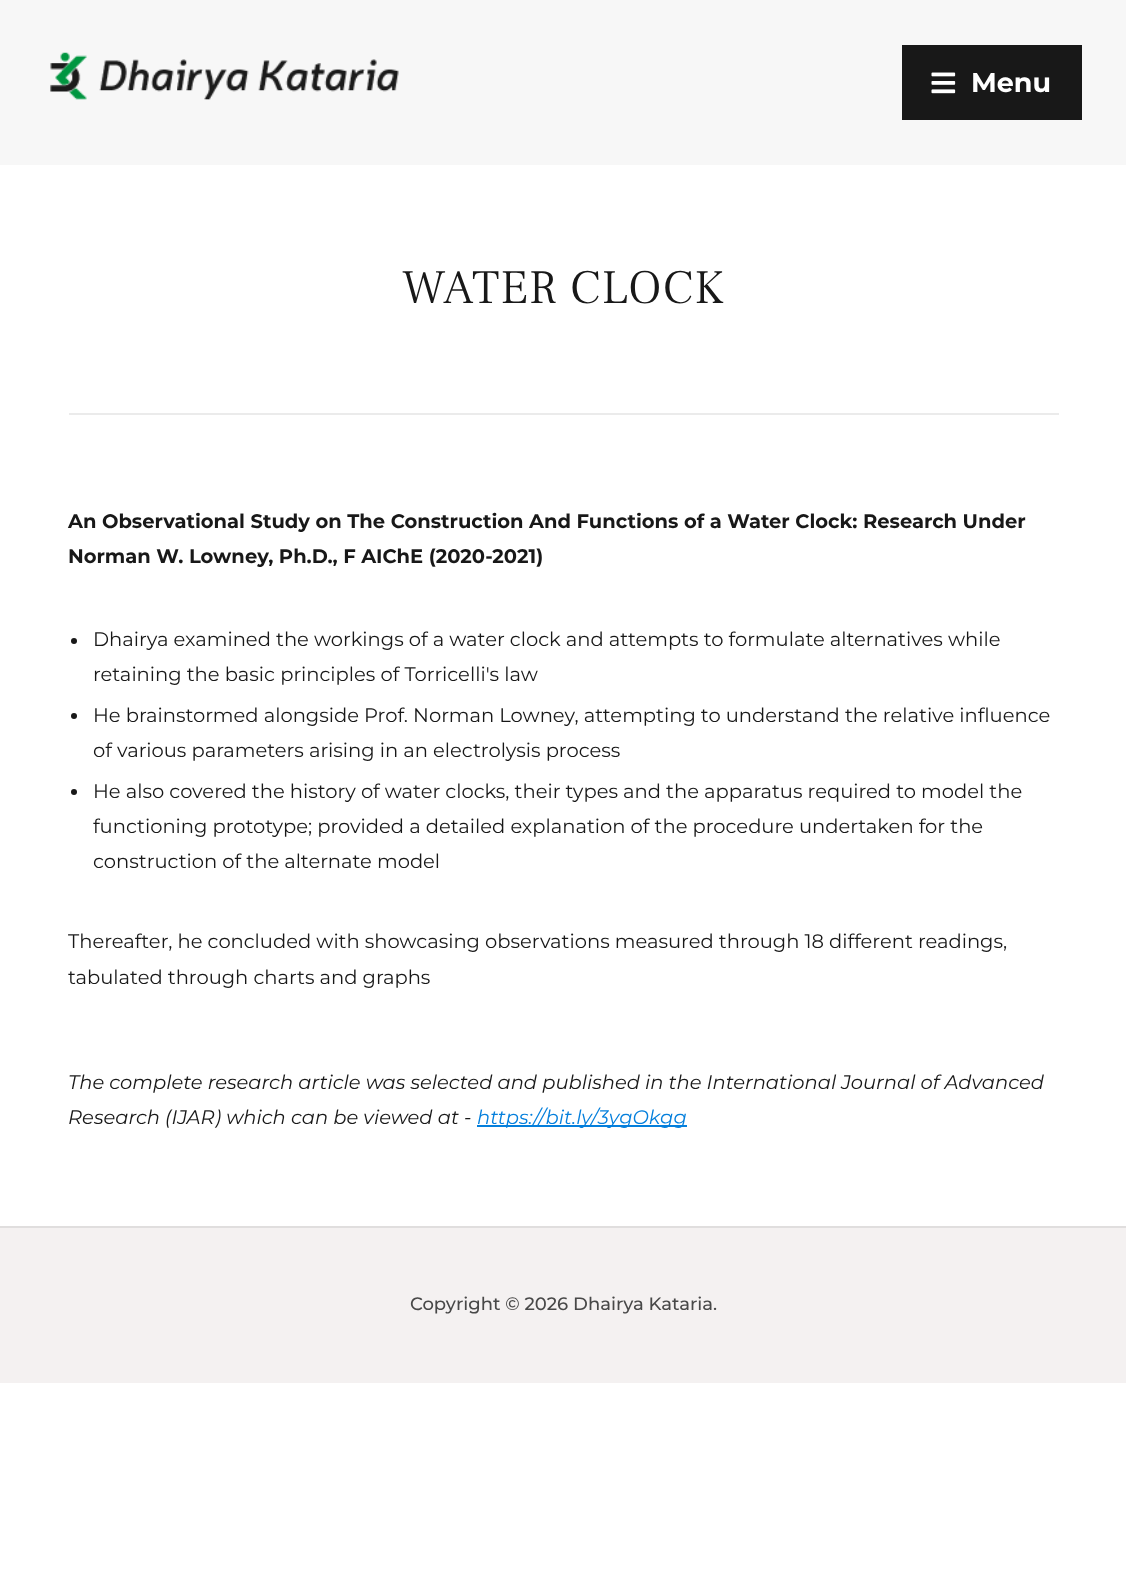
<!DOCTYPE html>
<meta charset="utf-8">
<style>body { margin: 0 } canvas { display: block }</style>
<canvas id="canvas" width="1126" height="1587"></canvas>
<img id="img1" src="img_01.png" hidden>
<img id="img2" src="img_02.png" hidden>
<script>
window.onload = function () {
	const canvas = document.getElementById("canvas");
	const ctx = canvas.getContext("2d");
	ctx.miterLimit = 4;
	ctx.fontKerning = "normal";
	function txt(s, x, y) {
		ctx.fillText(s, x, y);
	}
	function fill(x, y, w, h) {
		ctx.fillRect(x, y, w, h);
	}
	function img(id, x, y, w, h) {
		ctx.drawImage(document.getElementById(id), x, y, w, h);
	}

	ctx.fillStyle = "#FFFFFF";
	fill(0, 0, 1126, 1587);
	ctx.fillStyle = "#F7F7F7";
	fill(0, 0, 1126, 165);
	img("img1", 50, 52, 349, 48);
	ctx.fillStyle = "#181818";
	fill(902, 45, 180, 75);
	img("img2", 931, 72, 25, 22);
	ctx.fillStyle = "#EBEBEB";
	fill(69, 413, 990, 2);
	ctx.fillStyle = "#181818";
	ctx.beginPath();
	ctx.arc(74, 641, 3, 0, Math.PI * 2);
	ctx.fill();
	ctx.beginPath();
	ctx.arc(74, 716, 3, 0, Math.PI * 2);
	ctx.fill();
	ctx.beginPath();
	ctx.arc(74, 792, 3, 0, Math.PI * 2);
	ctx.fill();
	ctx.fillStyle = "#047FDC";
	fill(477, 1125, 210, 2);
	ctx.fillStyle = "#F4F1F1";
	fill(0, 1228, 1126, 155);
	ctx.fillStyle = "#E0DEDE";
	fill(0, 1226, 1126, 2);
	ctx.font = "bold 27px Montserrat";
	ctx.fillStyle = "#FFFFFF";
	txt("Menu", 971, 92);
	ctx.letterSpacing = "0.75px";
	ctx.font = "300 48px Frank Ruhl Libre";
	ctx.fillStyle = "#181818";
	txt("WATER CLOCK", 402, 303);
	ctx.letterSpacing = "0px";
	ctx.font = "bold 19.5px Montserrat";
	txt("An Observational Study on The Construction And Functions of a Water Clock: Research Under", 68, 528);
	txt("Norman W. Lowney, Ph.D., F AIChE (2020-2021)", 68, 563);
	ctx.font = "19.5px Montserrat";
	txt("Dhairya examined the workings of a water clock and attempts to formulate alternatives while", 93, 646);
	txt("retaining the basic principles of Torricelli's law", 93, 681);
	txt("He brainstormed alongside Prof. Norman Lowney, attempting to understand the relative influence", 93, 722);
	txt("of various parameters arising in an electrolysis process", 93, 757);
	txt("He also covered the history of water clocks, their types and the apparatus required to model the", 93, 798);
	txt("functioning prototype; provided a detailed explanation of the procedure undertaken for the", 93, 833);
	txt("construction of the alternate model", 93, 868);
	txt("Thereafter, he concluded with showcasing observations measured through 18 different readings,", 68, 948);
	txt("tabulated through charts and graphs", 68, 984);
	ctx.font = "italic 19.5px Montserrat";
	txt("The complete research article was selected and published in the International Journal of Advanced", 68, 1089);
	txt("Research (IJAR) which can be viewed at -", 68, 1124);
	ctx.fillStyle = "#047FDC";
	txt("https://bit.ly/3ygOkgg", 477, 1124);
	ctx.font = "500 18px Montserrat";
	ctx.fillStyle = "#484848";
	txt("Copyright © 2026 Dhairya Kataria.", 410, 1310);
};
</script>
